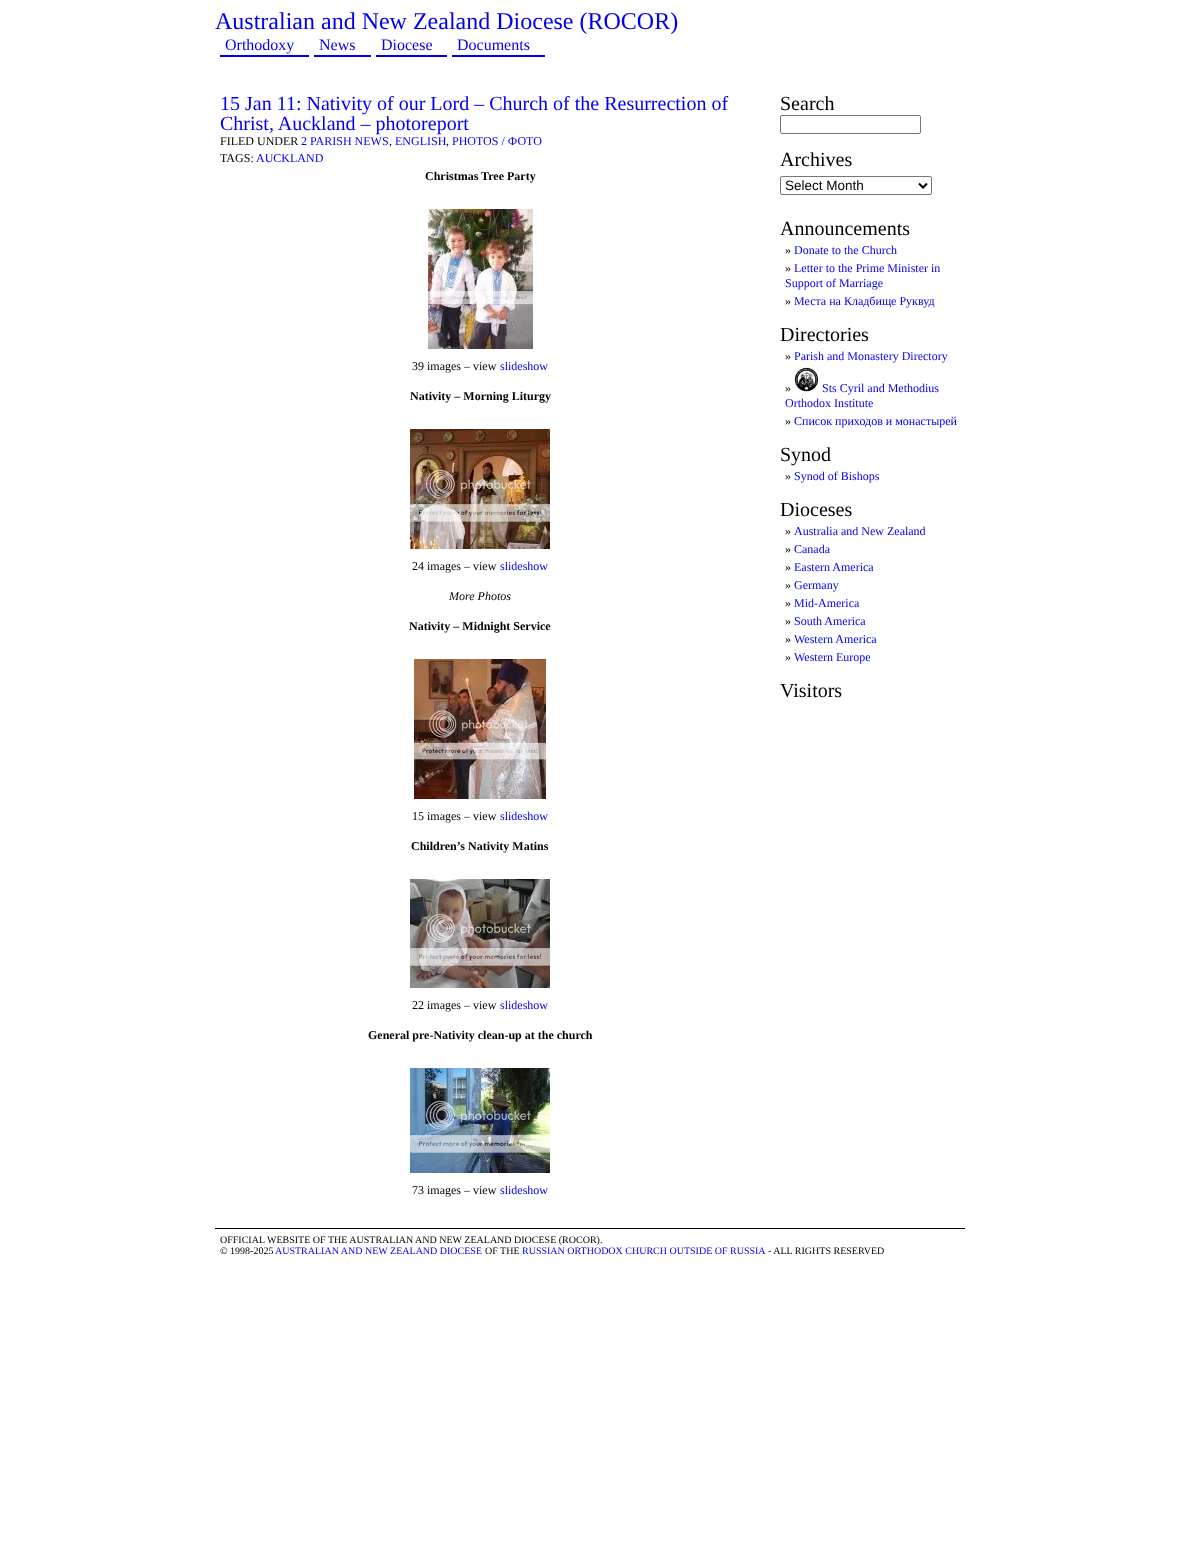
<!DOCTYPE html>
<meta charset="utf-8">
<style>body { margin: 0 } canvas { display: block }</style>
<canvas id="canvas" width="1180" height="1545"></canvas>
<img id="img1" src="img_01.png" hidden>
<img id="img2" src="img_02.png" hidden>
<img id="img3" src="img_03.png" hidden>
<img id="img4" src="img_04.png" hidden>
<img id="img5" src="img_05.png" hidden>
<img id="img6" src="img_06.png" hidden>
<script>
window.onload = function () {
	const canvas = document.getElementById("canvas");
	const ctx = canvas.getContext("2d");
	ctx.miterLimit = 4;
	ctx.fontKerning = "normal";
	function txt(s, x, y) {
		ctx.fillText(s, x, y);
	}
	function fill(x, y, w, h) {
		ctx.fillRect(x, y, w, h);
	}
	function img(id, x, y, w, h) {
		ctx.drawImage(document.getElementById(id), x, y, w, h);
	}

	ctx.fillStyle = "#FFFFFF";
	fill(0, 0, 1180, 1545);
	ctx.fillStyle = "#0000EE";
	fill(220, 55, 89, 2);
	fill(314, 55, 57, 2);
	fill(376, 55, 71, 2);
	fill(452, 55, 93, 2);
	img("img1", 428, 209, 105, 140);
	img("img2", 410, 429, 140, 120);
	img("img3", 414, 659, 132, 140);
	img("img4", 410, 879, 140, 109);
	img("img5", 410, 1068, 140, 105);
	ctx.beginPath();
	ctx.roundRect(780.5, 115.5, 140, 18, 1.5);
	ctx.strokeStyle = "#767676";
	ctx.stroke();
	ctx.beginPath();
	ctx.roundRect(780.5, 176.5, 151, 18, 1.5);
	ctx.stroke();
	ctx.beginPath();
	ctx.moveTo(919, 183.5);
	ctx.lineTo(923, 187.5);
	ctx.lineTo(927, 183.5);
	ctx.strokeStyle = "#000000";
	ctx.lineWidth = 2;
	ctx.stroke();
	img("img6", 794, 367, 25, 25);
	ctx.fillStyle = "#000000";
	fill(215, 1228, 750, 1);
	ctx.font = "24px Liberation Serif";
	ctx.fillStyle = "#0000EE";
	txt("Australian and New Zealand Diocese (ROCOR)", 215, 29);
	ctx.font = "16px Liberation Serif";
	txt("Orthodoxy", 225, 50);
	txt("News", 319, 50);
	txt("Diocese", 381, 50);
	txt("Documents", 457, 50);
	ctx.font = "20px Liberation Serif";
	txt("15 Jan 11: Nativity of our Lord – Church of the Resurrection of", 220, 110);
	txt("Christ, Auckland – photoreport", 220, 130);
	ctx.font = "12px Liberation Serif";
	ctx.fillStyle = "#000000";
	txt("FILED UNDER", 220, 145);
	ctx.fillStyle = "#0000EE";
	txt("2 PARISH NEWS", 301, 145);
	ctx.fillStyle = "#000000";
	txt(",", 389, 145);
	ctx.fillStyle = "#0000EE";
	txt("ENGLISH", 395, 145);
	ctx.fillStyle = "#000000";
	txt(",", 446, 145);
	ctx.fillStyle = "#0000EE";
	txt("PHOTOS / ФОТО", 452, 145);
	ctx.fillStyle = "#000000";
	txt("TAGS:", 220, 162);
	ctx.fillStyle = "#0000EE";
	txt("AUCKLAND", 256, 162);
	ctx.font = "bold 12px Liberation Serif";
	ctx.fillStyle = "#000000";
	txt("Christmas Tree Party", 425, 180);
	ctx.font = "12px Liberation Serif";
	txt("39 images – view", 412, 370);
	ctx.fillStyle = "#0000EE";
	txt("slideshow", 500, 370);
	ctx.font = "bold 12px Liberation Serif";
	ctx.fillStyle = "#000000";
	txt("Nativity – Morning Liturgy", 410, 400);
	ctx.font = "12px Liberation Serif";
	txt("24 images – view", 412, 570);
	ctx.fillStyle = "#0000EE";
	txt("slideshow", 500, 570);
	ctx.font = "italic 12px Liberation Serif";
	ctx.fillStyle = "#000000";
	txt("More Photos", 449, 600);
	ctx.font = "bold 12px Liberation Serif";
	txt("Nativity – Midnight Service", 409, 630);
	ctx.font = "12px Liberation Serif";
	txt("15 images – view", 412, 820);
	ctx.fillStyle = "#0000EE";
	txt("slideshow", 500, 820);
	ctx.font = "bold 12px Liberation Serif";
	ctx.fillStyle = "#000000";
	txt("Children’s Nativity Matins", 411, 850);
	ctx.font = "12px Liberation Serif";
	txt("22 images – view", 412, 1009);
	ctx.fillStyle = "#0000EE";
	txt("slideshow", 500, 1009);
	ctx.font = "bold 12px Liberation Serif";
	ctx.fillStyle = "#000000";
	txt("General pre-Nativity clean-up at the church", 368, 1039);
	ctx.font = "12px Liberation Serif";
	txt("73 images – view", 412, 1194);
	ctx.fillStyle = "#0000EE";
	txt("slideshow", 500, 1194);
	ctx.font = "20px Liberation Serif";
	ctx.fillStyle = "#000000";
	txt("Search", 780, 110);
	txt("Archives", 780, 166);
	ctx.font = "13.5px Liberation Sans";
	txt("Select Month", 785, 190);
	ctx.font = "20px Liberation Serif";
	txt("Announcements", 780, 235);
	ctx.font = "12px Liberation Serif";
	txt("»", 785, 254);
	ctx.fillStyle = "#0000EE";
	txt("Donate to the Church", 794, 254);
	ctx.fillStyle = "#000000";
	txt("»", 785, 272);
	ctx.fillStyle = "#0000EE";
	txt("Letter to the Prime Minister in", 794, 272);
	txt("Support of Marriage", 785, 287);
	ctx.fillStyle = "#000000";
	txt("»", 785, 305);
	ctx.fillStyle = "#0000EE";
	txt("Места на Кладбище Руквуд", 794, 305);
	ctx.font = "20px Liberation Serif";
	ctx.fillStyle = "#000000";
	txt("Directories", 780, 341);
	ctx.font = "12px Liberation Serif";
	txt("»", 785, 360);
	ctx.fillStyle = "#0000EE";
	txt("Parish and Monastery Directory", 794, 360);
	ctx.fillStyle = "#000000";
	txt("»", 785, 392);
	ctx.fillStyle = "#0000EE";
	txt("Sts Cyril and Methodius", 822, 392);
	txt("Orthodox Institute", 785, 407);
	ctx.fillStyle = "#000000";
	txt("»", 785, 425);
	ctx.fillStyle = "#0000EE";
	txt("Список приходов и монастырей", 794, 425);
	ctx.font = "20px Liberation Serif";
	ctx.fillStyle = "#000000";
	txt("Synod", 780, 461);
	ctx.font = "12px Liberation Serif";
	txt("»", 785, 480);
	ctx.fillStyle = "#0000EE";
	txt("Synod of Bishops", 794, 480);
	ctx.font = "20px Liberation Serif";
	ctx.fillStyle = "#000000";
	txt("Dioceses", 780, 516);
	ctx.font = "12px Liberation Serif";
	txt("»", 785, 535);
	ctx.fillStyle = "#0000EE";
	txt("Australia and New Zealand", 794, 535);
	ctx.fillStyle = "#000000";
	txt("»", 785, 553);
	ctx.fillStyle = "#0000EE";
	txt("Canada", 794, 553);
	ctx.fillStyle = "#000000";
	txt("»", 785, 571);
	ctx.fillStyle = "#0000EE";
	txt("Eastern America", 794, 571);
	ctx.fillStyle = "#000000";
	txt("»", 785, 589);
	ctx.fillStyle = "#0000EE";
	txt("Germany", 794, 589);
	ctx.fillStyle = "#000000";
	txt("»", 785, 607);
	ctx.fillStyle = "#0000EE";
	txt("Mid-America", 794, 607);
	ctx.fillStyle = "#000000";
	txt("»", 785, 625);
	ctx.fillStyle = "#0000EE";
	txt("South America", 794, 625);
	ctx.fillStyle = "#000000";
	txt("»", 785, 643);
	ctx.fillStyle = "#0000EE";
	txt("Western America", 794, 643);
	ctx.fillStyle = "#000000";
	txt("»", 785, 661);
	ctx.fillStyle = "#0000EE";
	txt("Western Europe", 794, 661);
	ctx.font = "20px Liberation Serif";
	ctx.fillStyle = "#000000";
	txt("Visitors", 780, 697);
	ctx.font = "10px Liberation Serif";
	txt("OFFICIAL WEBSITE OF THE AUSTRALIAN AND NEW ZEALAND DIOCESE (ROCOR).", 220, 1243);
	txt("© 1998-2025", 220, 1254);
	ctx.fillStyle = "#0000EE";
	txt("AUSTRALIAN AND NEW ZEALAND DIOCESE", 275, 1254);
	ctx.fillStyle = "#000000";
	txt("OF THE", 485, 1254);
	ctx.fillStyle = "#0000EE";
	txt("RUSSIAN ORTHODOX CHURCH OUTSIDE OF RUSSIA", 522, 1254);
	ctx.fillStyle = "#000000";
	txt("- ALL RIGHTS RESERVED", 768, 1254);
};
</script>
